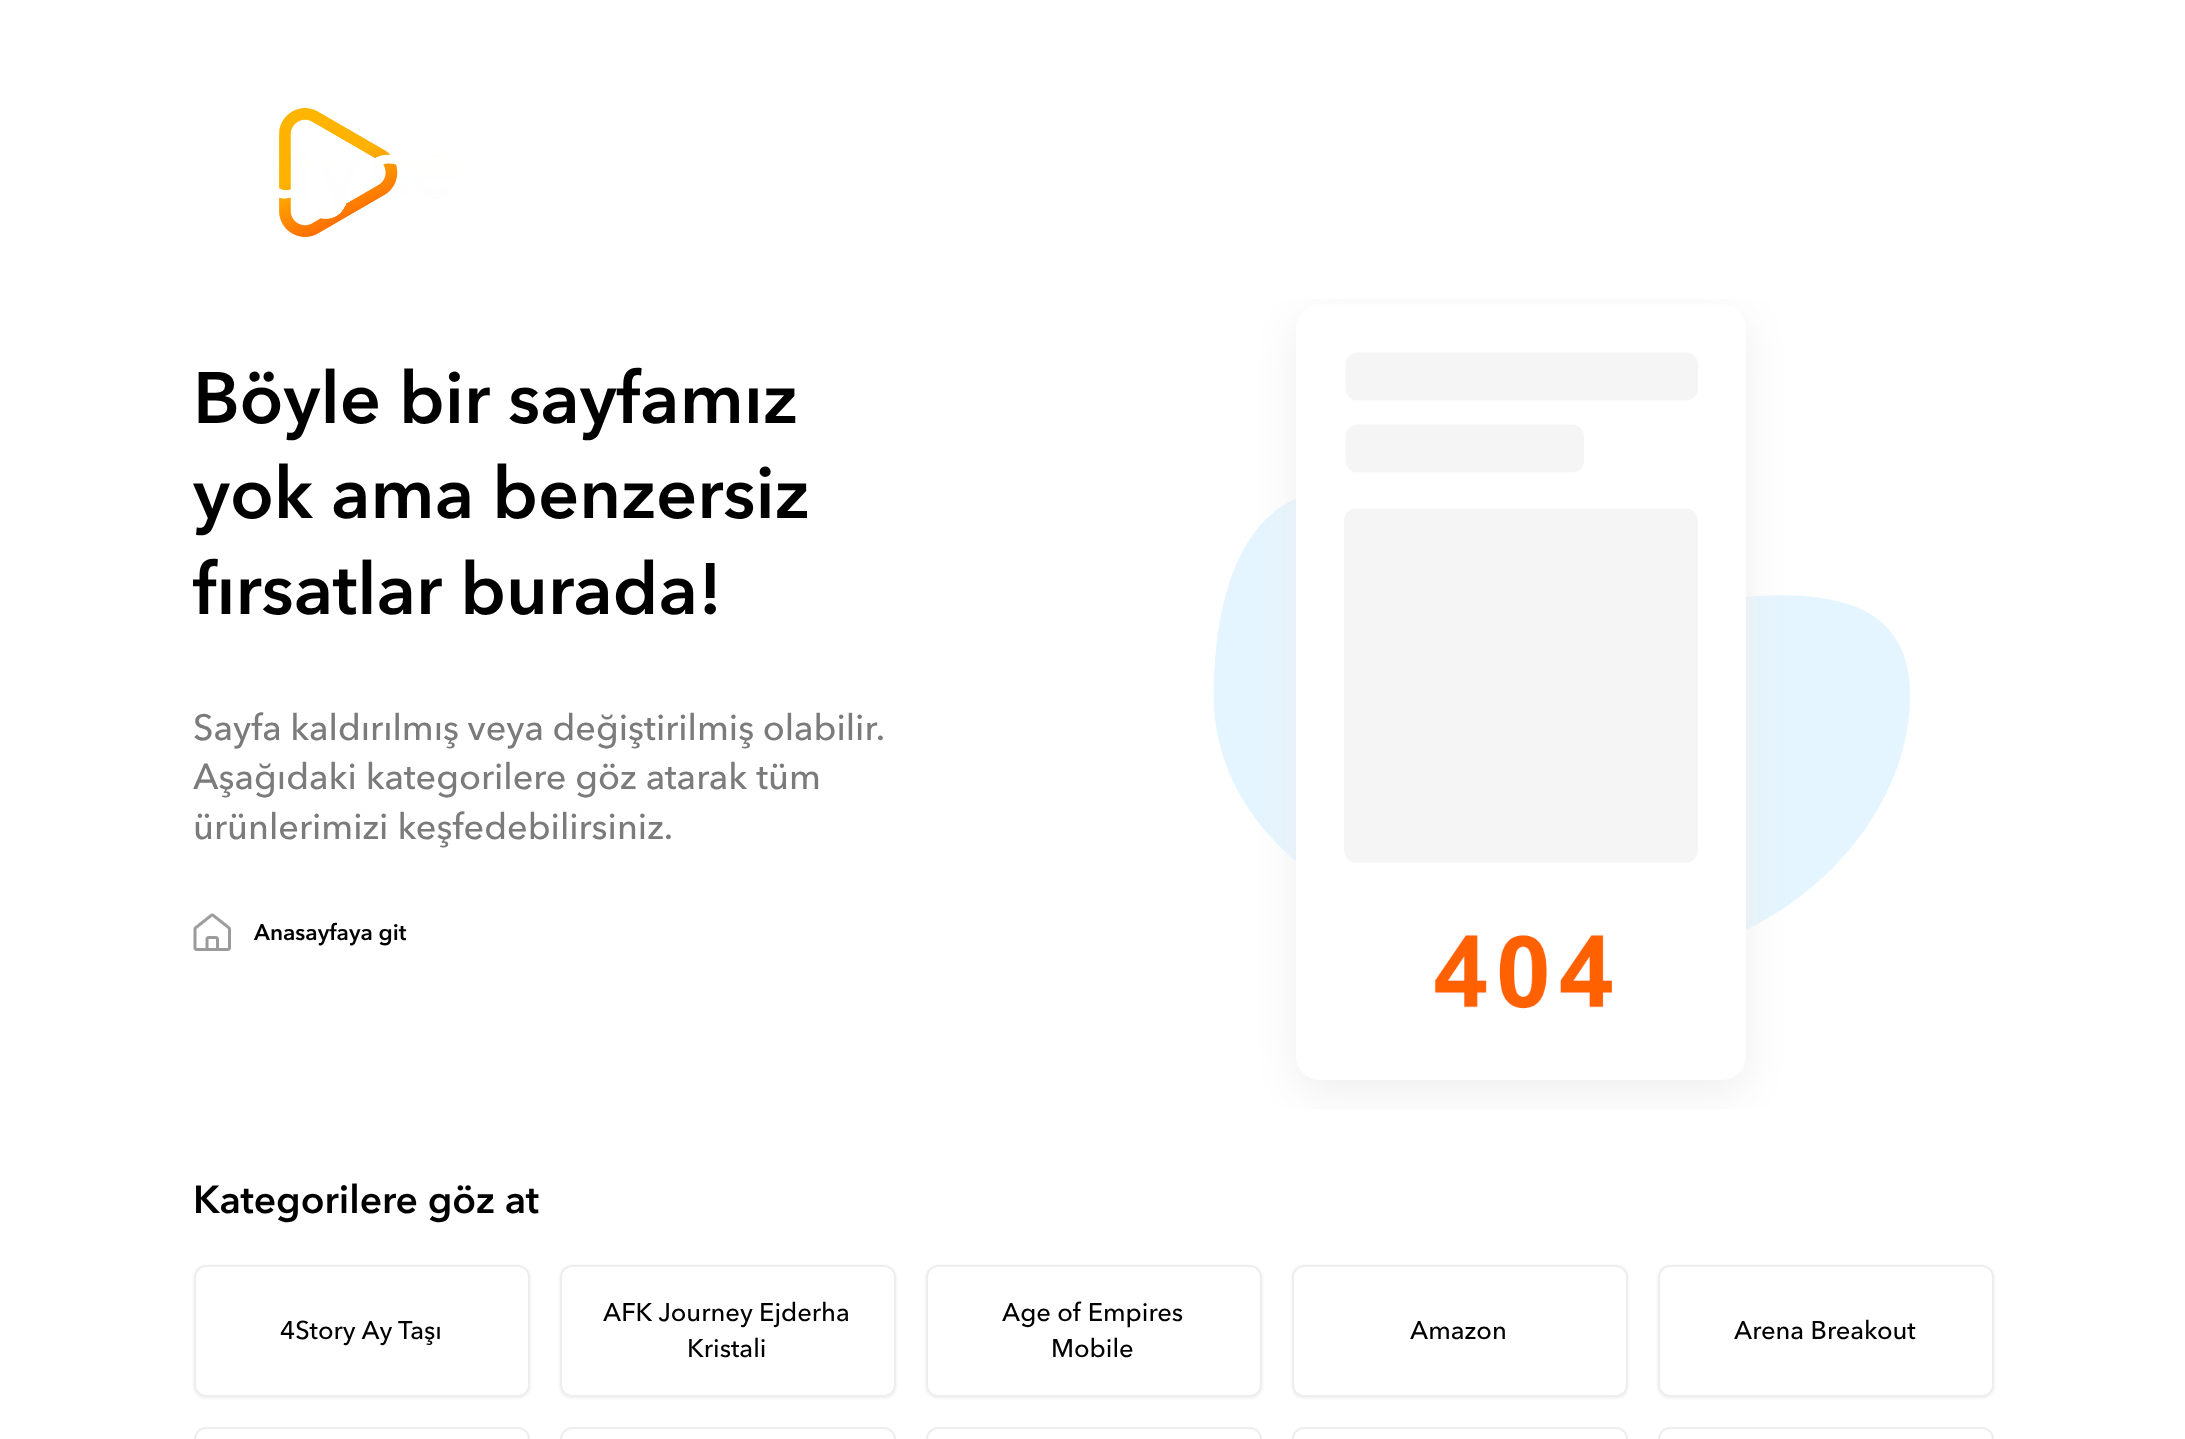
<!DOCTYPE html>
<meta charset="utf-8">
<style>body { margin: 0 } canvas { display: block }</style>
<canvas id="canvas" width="2185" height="1439"></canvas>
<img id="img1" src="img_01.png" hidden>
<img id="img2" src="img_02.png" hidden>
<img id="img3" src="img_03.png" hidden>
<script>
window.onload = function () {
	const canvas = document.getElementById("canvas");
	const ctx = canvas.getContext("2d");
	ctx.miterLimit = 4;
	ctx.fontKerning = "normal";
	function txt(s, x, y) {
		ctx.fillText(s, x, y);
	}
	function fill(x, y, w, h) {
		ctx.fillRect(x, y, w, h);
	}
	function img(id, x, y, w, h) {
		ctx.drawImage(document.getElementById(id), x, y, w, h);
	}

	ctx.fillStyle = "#FFFFFF";
	fill(0, 0, 2185, 1439);
	img("img1", 278, 108, 188, 129);
	img("img2", 193, 913, 38, 38);
	img("img3", 1213, 299, 698, 810);
	ctx.save();
	ctx.beginPath();
	ctx.moveTo(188, 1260);
	ctx.lineTo(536, 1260);
	ctx.lineTo(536, 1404);
	ctx.lineTo(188, 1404);
	ctx.closePath();
	ctx.moveTo(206, 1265);
	ctx.lineTo(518, 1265);
	ctx.bezierCurveTo(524.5, 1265, 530, 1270.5, 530, 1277);
	ctx.lineTo(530, 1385);
	ctx.bezierCurveTo(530, 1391.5, 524.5, 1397, 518, 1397);
	ctx.lineTo(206, 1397);
	ctx.bezierCurveTo(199.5, 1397, 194, 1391.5, 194, 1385);
	ctx.lineTo(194, 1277);
	ctx.bezierCurveTo(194, 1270.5, 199.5, 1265, 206, 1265);
	ctx.closePath();
	ctx.clip("evenodd");
	ctx.fillStyle = "rgba(0, 0, 0, 0.08)";
	ctx.filter = "blur(1.5px)";
	ctx.beginPath();
	ctx.roundRect(194, 1266, 336, 132, 12);
	ctx.fill();
	ctx.filter = "none";
	ctx.restore();
	ctx.beginPath();
	ctx.roundRect(195, 1266, 334, 130, 11);
	ctx.strokeStyle = "#EEEEEE";
	ctx.lineWidth = 2;
	ctx.stroke();
	ctx.save();
	ctx.beginPath();
	ctx.moveTo(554, 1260);
	ctx.lineTo(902, 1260);
	ctx.lineTo(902, 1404);
	ctx.lineTo(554, 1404);
	ctx.closePath();
	ctx.moveTo(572, 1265);
	ctx.lineTo(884, 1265);
	ctx.bezierCurveTo(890.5, 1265, 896, 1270.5, 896, 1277);
	ctx.lineTo(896, 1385);
	ctx.bezierCurveTo(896, 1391.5, 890.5, 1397, 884, 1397);
	ctx.lineTo(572, 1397);
	ctx.bezierCurveTo(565.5, 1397, 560, 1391.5, 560, 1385);
	ctx.lineTo(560, 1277);
	ctx.bezierCurveTo(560, 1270.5, 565.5, 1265, 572, 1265);
	ctx.closePath();
	ctx.clip("evenodd");
	ctx.fillStyle = "rgba(0, 0, 0, 0.08)";
	ctx.filter = "blur(1.5px)";
	ctx.beginPath();
	ctx.roundRect(560, 1266, 336, 132, 12);
	ctx.fill();
	ctx.filter = "none";
	ctx.restore();
	ctx.beginPath();
	ctx.roundRect(561, 1266, 334, 130, 11);
	ctx.stroke();
	ctx.save();
	ctx.beginPath();
	ctx.moveTo(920, 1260);
	ctx.lineTo(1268, 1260);
	ctx.lineTo(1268, 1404);
	ctx.lineTo(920, 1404);
	ctx.closePath();
	ctx.moveTo(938, 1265);
	ctx.lineTo(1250, 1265);
	ctx.bezierCurveTo(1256.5, 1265, 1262, 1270.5, 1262, 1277);
	ctx.lineTo(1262, 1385);
	ctx.bezierCurveTo(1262, 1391.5, 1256.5, 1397, 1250, 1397);
	ctx.lineTo(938, 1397);
	ctx.bezierCurveTo(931.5, 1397, 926, 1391.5, 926, 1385);
	ctx.lineTo(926, 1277);
	ctx.bezierCurveTo(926, 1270.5, 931.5, 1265, 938, 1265);
	ctx.closePath();
	ctx.clip("evenodd");
	ctx.fillStyle = "rgba(0, 0, 0, 0.08)";
	ctx.filter = "blur(1.5px)";
	ctx.beginPath();
	ctx.roundRect(926, 1266, 336, 132, 12);
	ctx.fill();
	ctx.filter = "none";
	ctx.restore();
	ctx.beginPath();
	ctx.roundRect(927, 1266, 334, 130, 11);
	ctx.stroke();
	ctx.save();
	ctx.beginPath();
	ctx.moveTo(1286, 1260);
	ctx.lineTo(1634, 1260);
	ctx.lineTo(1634, 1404);
	ctx.lineTo(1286, 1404);
	ctx.closePath();
	ctx.moveTo(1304, 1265);
	ctx.lineTo(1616, 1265);
	ctx.bezierCurveTo(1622.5, 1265, 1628, 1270.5, 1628, 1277);
	ctx.lineTo(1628, 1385);
	ctx.bezierCurveTo(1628, 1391.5, 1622.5, 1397, 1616, 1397);
	ctx.lineTo(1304, 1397);
	ctx.bezierCurveTo(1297.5, 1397, 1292, 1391.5, 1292, 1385);
	ctx.lineTo(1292, 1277);
	ctx.bezierCurveTo(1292, 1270.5, 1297.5, 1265, 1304, 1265);
	ctx.closePath();
	ctx.clip("evenodd");
	ctx.fillStyle = "rgba(0, 0, 0, 0.08)";
	ctx.filter = "blur(1.5px)";
	ctx.beginPath();
	ctx.roundRect(1292, 1266, 336, 132, 12);
	ctx.fill();
	ctx.filter = "none";
	ctx.restore();
	ctx.beginPath();
	ctx.roundRect(1293, 1266, 334, 130, 11);
	ctx.stroke();
	ctx.save();
	ctx.beginPath();
	ctx.moveTo(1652, 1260);
	ctx.lineTo(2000, 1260);
	ctx.lineTo(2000, 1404);
	ctx.lineTo(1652, 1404);
	ctx.closePath();
	ctx.moveTo(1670, 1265);
	ctx.lineTo(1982, 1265);
	ctx.bezierCurveTo(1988.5, 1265, 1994, 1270.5, 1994, 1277);
	ctx.lineTo(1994, 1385);
	ctx.bezierCurveTo(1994, 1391.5, 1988.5, 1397, 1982, 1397);
	ctx.lineTo(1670, 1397);
	ctx.bezierCurveTo(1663.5, 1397, 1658, 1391.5, 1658, 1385);
	ctx.lineTo(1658, 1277);
	ctx.bezierCurveTo(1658, 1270.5, 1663.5, 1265, 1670, 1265);
	ctx.closePath();
	ctx.clip("evenodd");
	ctx.fillStyle = "rgba(0, 0, 0, 0.08)";
	ctx.filter = "blur(1.5px)";
	ctx.beginPath();
	ctx.roundRect(1658, 1266, 336, 132, 12);
	ctx.fill();
	ctx.filter = "none";
	ctx.restore();
	ctx.beginPath();
	ctx.roundRect(1659, 1266, 334, 130, 11);
	ctx.stroke();
	ctx.beginPath();
	ctx.roundRect(195, 1428, 334, 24, 11);
	ctx.stroke();
	ctx.beginPath();
	ctx.roundRect(561, 1428, 334, 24, 11);
	ctx.stroke();
	ctx.beginPath();
	ctx.roundRect(927, 1428, 334, 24, 11);
	ctx.stroke();
	ctx.beginPath();
	ctx.roundRect(1293, 1428, 334, 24, 11);
	ctx.stroke();
	ctx.beginPath();
	ctx.roundRect(1659, 1428, 334, 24, 11);
	ctx.stroke();
	ctx.font = "600 72px Avenir Next";
	ctx.fillStyle = "#000000";
	txt("Böyle bir sayfamız", 193, 423);
	txt("yok ama benzersiz", 193, 518);
	txt("fırsatlar burada!", 193, 614);
	ctx.wordSpacing = "-0.5px";
	ctx.font = "500 36px Avenir Next";
	ctx.fillStyle = "#7B7B7B";
	txt("Sayfa kaldırılmış veya değiştirilmiş olabilir.", 193, 740);
	ctx.wordSpacing = "0px";
	txt("Aşağıdaki kategorilere göz atarak tüm", 193, 789);
	txt("ürünlerimizi keşfedebilirsiniz.", 193, 839);
	ctx.font = "600 22.5px Avenir Next";
	ctx.fillStyle = "#000000";
	txt("Anasayfaya git", 254, 940);
	ctx.font = "600 39px Avenir Next";
	txt("Kategorilere göz at", 193, 1213);
	ctx.font = "500 25.5px Avenir Next";
	txt("4Story Ay Taşı", 280, 1339);
	txt("AFK Journey Ejderha", 603, 1321);
	txt("Kristali", 687, 1357);
	txt("Age of Empires", 1002, 1321);
	txt("Mobile", 1051, 1357);
	txt("Amazon", 1410, 1339);
	txt("Arena Breakout", 1734, 1339);
};
</script>
